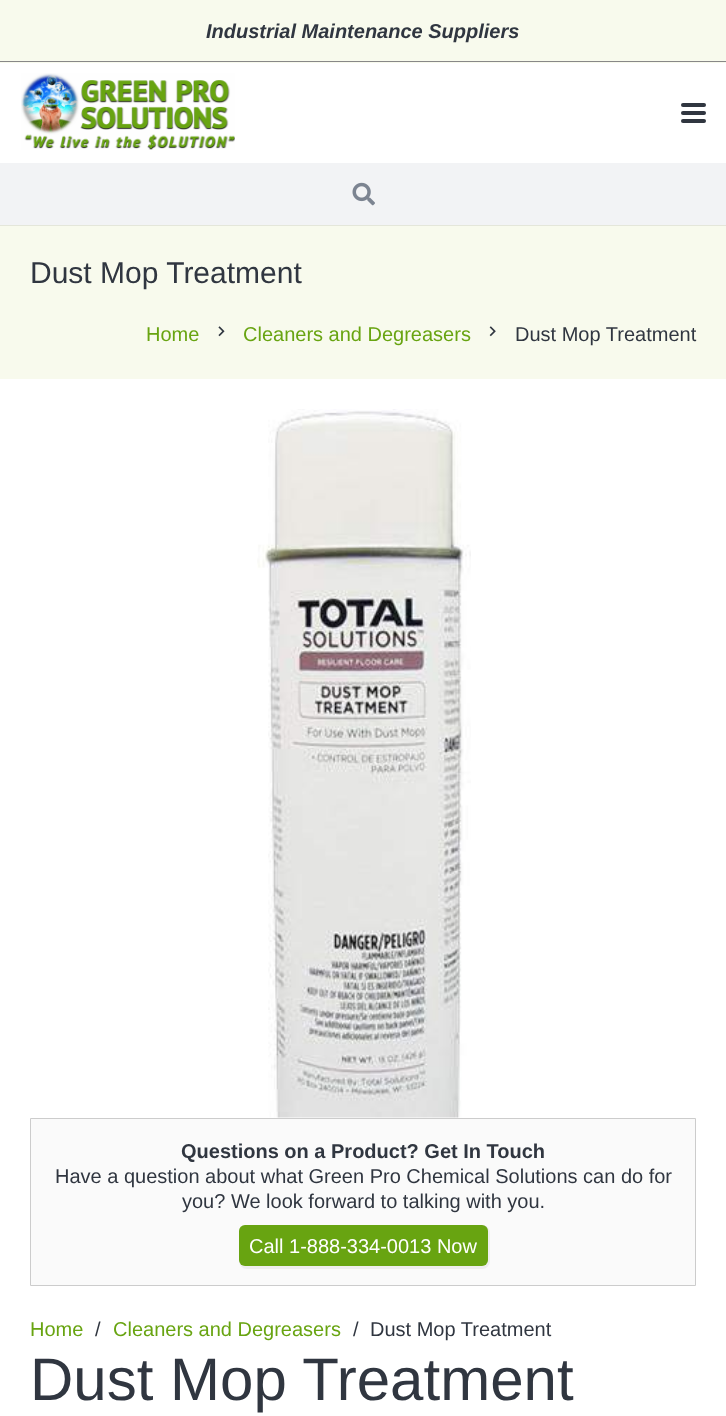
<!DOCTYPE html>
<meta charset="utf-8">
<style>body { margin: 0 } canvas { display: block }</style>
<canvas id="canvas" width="726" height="1416"></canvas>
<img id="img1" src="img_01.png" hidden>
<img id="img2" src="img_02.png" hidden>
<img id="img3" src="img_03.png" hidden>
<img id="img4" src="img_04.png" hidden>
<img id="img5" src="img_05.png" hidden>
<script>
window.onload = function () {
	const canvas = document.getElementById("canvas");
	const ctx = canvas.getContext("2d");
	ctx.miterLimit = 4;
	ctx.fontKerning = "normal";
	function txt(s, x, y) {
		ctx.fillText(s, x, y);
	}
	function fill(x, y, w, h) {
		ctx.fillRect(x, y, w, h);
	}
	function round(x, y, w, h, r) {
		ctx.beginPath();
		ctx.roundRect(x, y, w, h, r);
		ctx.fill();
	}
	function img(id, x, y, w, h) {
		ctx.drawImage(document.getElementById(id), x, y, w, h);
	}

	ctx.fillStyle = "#FFFFFF";
	fill(0, 0, 726, 1416);
	ctx.fillStyle = "#F8FAED";
	fill(0, 0, 726, 63);
	ctx.fillStyle = "#888888";
	fill(0, 61, 726, 1);
	img("img1", 21, 73, 214, 77);
	ctx.fillStyle = "#303640";
	round(681, 111, 25, 4, 2);
	round(681, 103, 25, 4, 2);
	round(681, 119, 25, 4, 2);
	ctx.fillStyle = "#E4E6DA";
	fill(0, 225, 726, 1);
	ctx.fillStyle = "#F2F3F5";
	fill(0, 163, 726, 62);
	img("img2", 352, 182, 23, 24);
	ctx.fillStyle = "#F8FAED";
	fill(0, 226, 726, 153);
	img("img3", 218, 326, 7, 11);
	img("img4", 489, 326, 7, 11);
	img("img5", 257, 409, 214, 709);
	ctx.fillStyle = "#FAFAFA";
	ctx.beginPath();
	ctx.rect(30.5, 1118.5, 665, 167);
	ctx.fill();
	ctx.strokeStyle = "#CCCCCC";
	ctx.stroke();
	ctx.fillStyle = "#EEEEEE";
	ctx.filter = "blur(0.5px)";
	ctx.beginPath();
	ctx.roundRect(239, 1225, 251, 44, 8);
	ctx.fill();
	ctx.filter = "none";
	ctx.fillStyle = "#68A411";
	round(239, 1225, 249, 41, 6);
	ctx.font = "italic bold 20px Liberation Sans";
	ctx.fillStyle = "#303640";
	txt("Industrial Maintenance Suppliers", 206, 38);
	ctx.font = "30px Liberation Sans";
	txt("Dust Mop Treatment", 30, 283);
	ctx.font = "20px Liberation Sans";
	ctx.fillStyle = "#68A411";
	txt("Home", 146, 341);
	txt("Cleaners and Degreasers", 243, 341);
	ctx.fillStyle = "#303640";
	txt("Dust Mop Treatment", 515, 341);
	ctx.font = "bold 20px Liberation Sans";
	txt("Questions on a Product? Get In Touch", 181, 1158);
	ctx.font = "20px Liberation Sans";
	txt("Have a question about what Green Pro Chemical Solutions can do for", 55, 1183);
	txt("you? We look forward to talking with you.", 182, 1208);
	ctx.fillStyle = "#FFFFFF";
	txt("Call 1-888-334-0013 Now", 249, 1253);
	ctx.fillStyle = "#68A411";
	txt("Home", 30, 1336);
	ctx.fillStyle = "#303640";
	txt("/", 95, 1336);
	ctx.fillStyle = "#68A411";
	txt("Cleaners and Degreasers", 113, 1336);
	ctx.fillStyle = "#303640";
	txt("/", 353, 1336);
	txt("Dust Mop Treatment", 370, 1336);
	ctx.font = "60px Liberation Sans";
	txt("Dust Mop Treatment", 30, 1400);
};
</script>
